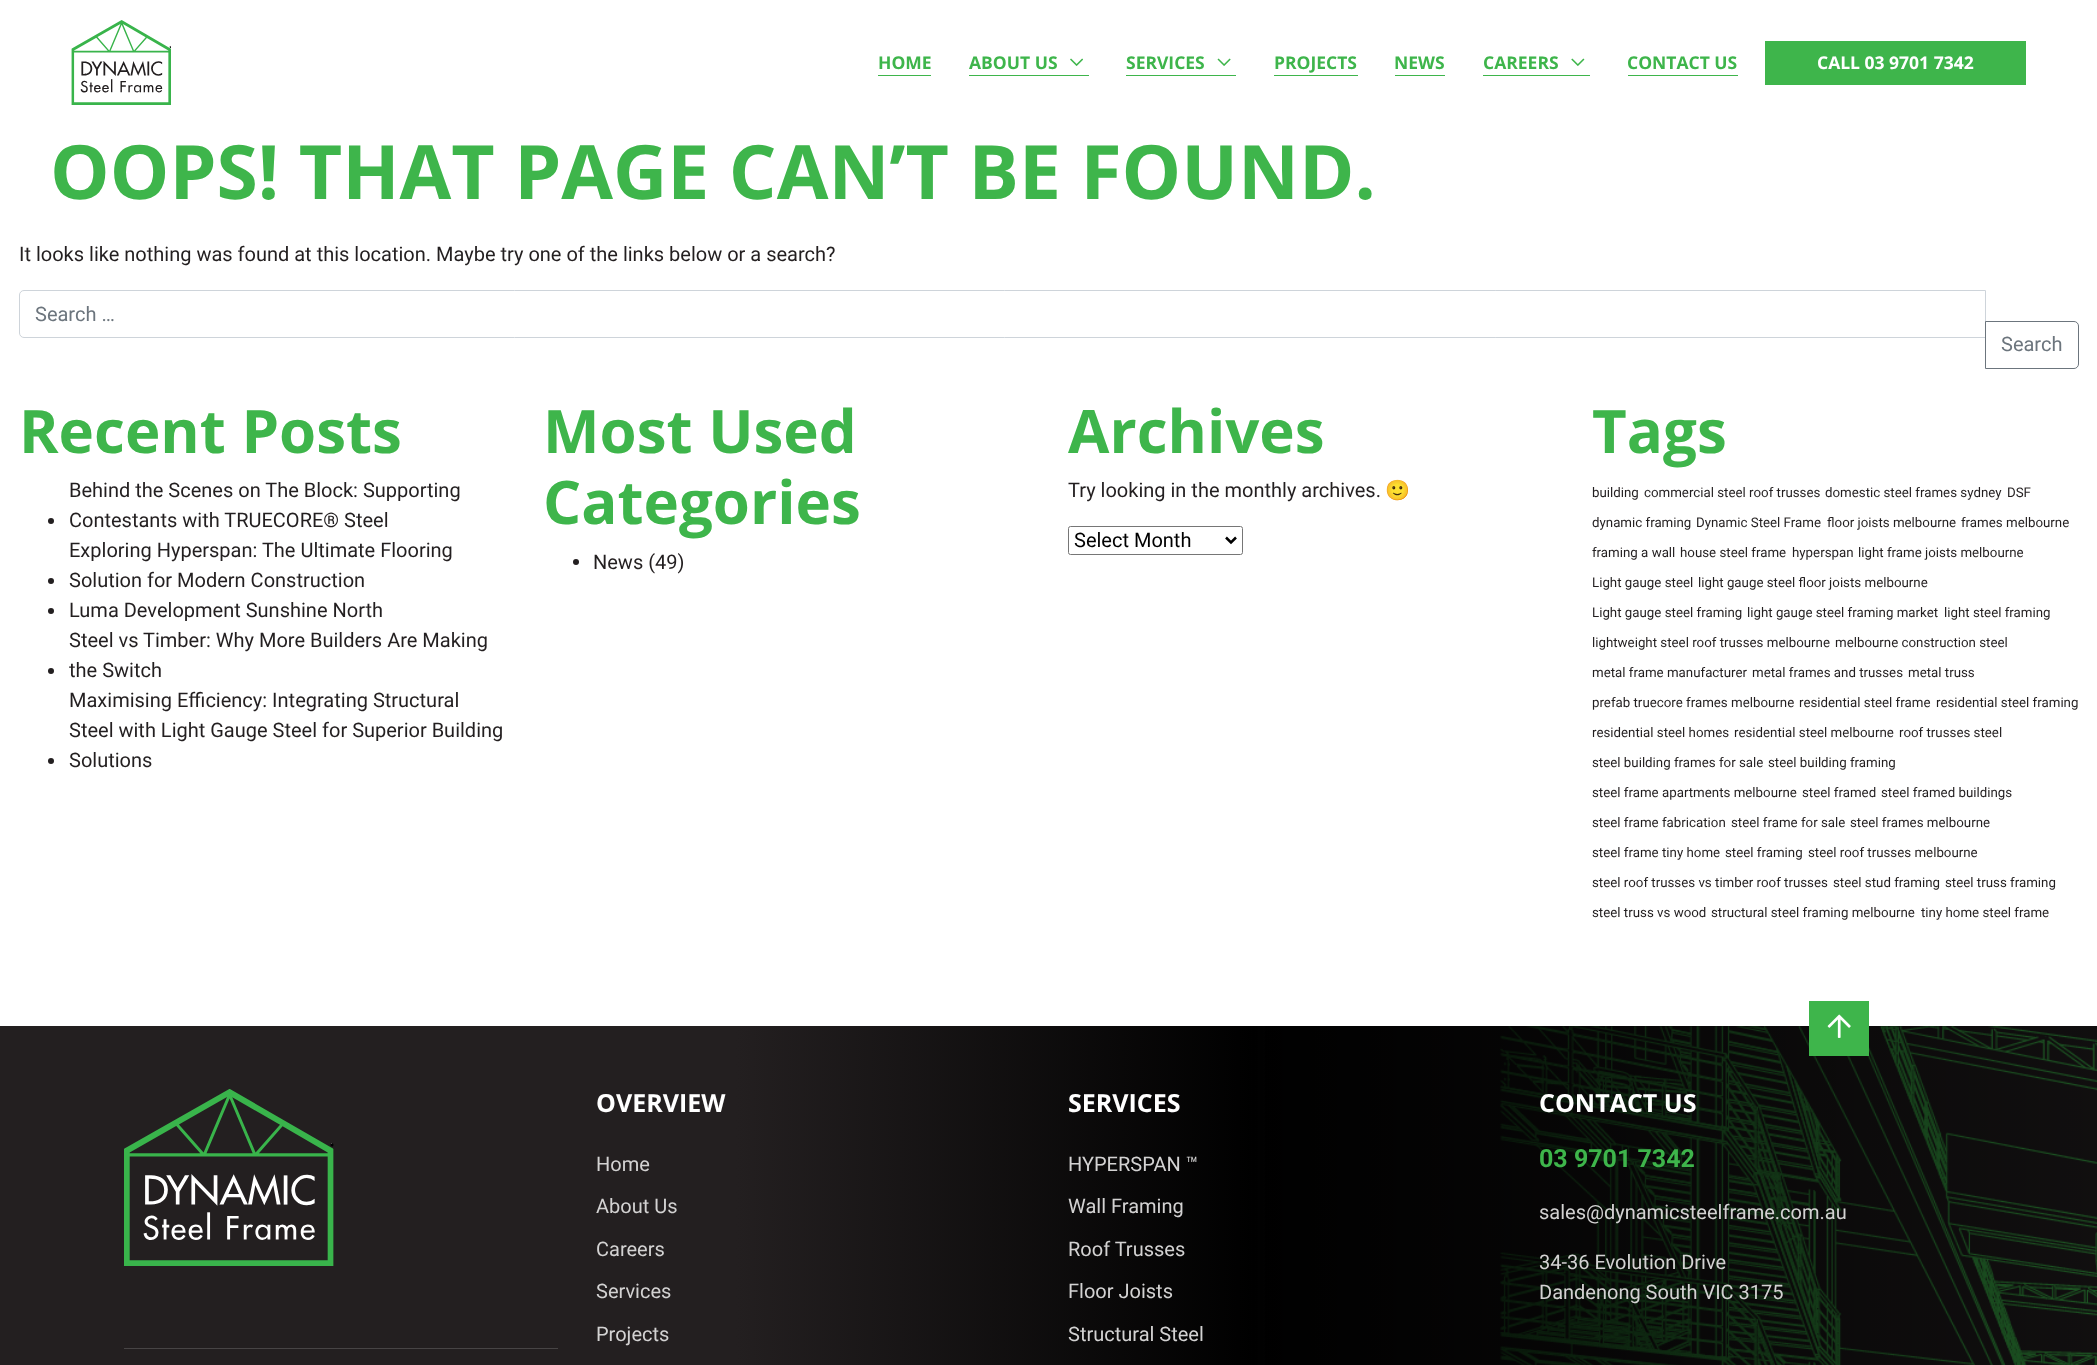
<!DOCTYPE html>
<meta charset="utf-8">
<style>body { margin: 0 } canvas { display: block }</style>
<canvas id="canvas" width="2097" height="1365"></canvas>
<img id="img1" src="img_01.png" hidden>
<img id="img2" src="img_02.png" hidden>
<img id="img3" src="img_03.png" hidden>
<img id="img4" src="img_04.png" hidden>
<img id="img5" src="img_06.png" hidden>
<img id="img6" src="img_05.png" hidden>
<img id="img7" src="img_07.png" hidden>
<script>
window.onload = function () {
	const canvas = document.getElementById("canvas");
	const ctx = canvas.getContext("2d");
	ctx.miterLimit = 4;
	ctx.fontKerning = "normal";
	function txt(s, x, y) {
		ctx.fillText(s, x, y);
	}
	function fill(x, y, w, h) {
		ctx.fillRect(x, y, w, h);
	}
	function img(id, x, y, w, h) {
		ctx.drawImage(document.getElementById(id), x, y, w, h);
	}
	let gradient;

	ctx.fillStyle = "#FFFFFF";
	fill(0, 0, 2097, 1365);
	img("img1", 71, 20, 100, 85);
	ctx.fillStyle = "#3EB54B";
	fill(878, 75, 53, 1);
	img("img2", 1070, 58, 13, 8);
	fill(969, 75, 120, 1);
	img("img3", 1217, 58, 14, 8);
	fill(1126, 75, 110, 1);
	fill(1274, 75, 84, 1);
	fill(1395, 75, 50, 1);
	img("img4", 1571, 58, 14, 8);
	fill(1483, 75, 107, 1);
	fill(1628, 75, 110, 1);
	fill(1765, 41, 261, 44);
	ctx.beginPath();
	ctx.roundRect(19.5, 290.5, 1966, 47, [4.5, 0, 0, 4.5]);
	ctx.strokeStyle = "#CED4DA";
	ctx.stroke();
	ctx.beginPath();
	ctx.roundRect(1985.5, 321.5, 93, 47, [0, 4.5, 4.5, 0]);
	ctx.strokeStyle = "#6C757D";
	ctx.stroke();
	ctx.fillStyle = "#231F20";
	ctx.beginPath();
	ctx.arc(51, 521, 3, 0, Math.PI * 2);
	ctx.fill();
	ctx.beginPath();
	ctx.arc(51, 581, 3, 0, Math.PI * 2);
	ctx.fill();
	ctx.beginPath();
	ctx.arc(51, 611, 3, 0, Math.PI * 2);
	ctx.fill();
	ctx.beginPath();
	ctx.arc(51, 671, 3, 0, Math.PI * 2);
	ctx.fill();
	ctx.beginPath();
	ctx.arc(51, 761, 3, 0, Math.PI * 2);
	ctx.fill();
	ctx.beginPath();
	ctx.arc(576, 562, 3, 0, Math.PI * 2);
	ctx.fill();
	ctx.beginPath();
	ctx.roundRect(1068.5, 526.5, 174, 28, 2);
	ctx.strokeStyle = "#767676";
	ctx.stroke();
	ctx.beginPath();
	ctx.moveTo(1226, 537.5);
	ctx.lineTo(1231, 542.5);
	ctx.lineTo(1236, 537.5);
	ctx.strokeStyle = "#000000";
	ctx.lineWidth = 2.5;
	ctx.stroke();
	fill(1265, 1026, 832, 339);
	img("img5", 1500, 1026, 597, 339);
	gradient = ctx.createLinearGradient(0, 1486, 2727, 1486);
	gradient.addColorStop(0.27, "#231F20");
	gradient.addColorStop(0.46, "#000000");
	gradient.addColorStop(1, "rgba(0, 0, 0, 0.17)");
	ctx.fillStyle = gradient;
	fill(0, 1026, 2097, 339);
	ctx.fillStyle = "#3EB54B";
	fill(1809, 1001, 60, 55);
	img("img6", 1827, 1014, 24, 24);
	img("img7", 124, 1089, 210, 177);
	ctx.fillStyle = "#474445";
	fill(124, 1348, 434, 1);
	ctx.font = "bold 17.5px Open Sans";
	ctx.fillStyle = "#3EB54B";
	txt("HOME", 878, 69);
	txt("ABOUT US", 969, 69);
	txt("SERVICES", 1126, 69);
	txt("PROJECTS", 1274, 69);
	txt("NEWS", 1394, 69);
	txt("CAREERS", 1483, 69);
	txt("CONTACT US", 1627, 69);
	ctx.fillStyle = "#FFFFFF";
	txt("CALL 03 9701 7342", 1817, 69);
	ctx.font = "bold 75px Open Sans";
	ctx.fillStyle = "#3EB54B";
	txt("OOPS! THAT PAGE CAN’T BE FOUND.", 50, 199);
	ctx.font = "20px Roboto";
	ctx.fillStyle = "#231F20";
	txt("It looks like nothing was found at this location. Maybe try one of the links below or a search?", 19, 261);
	ctx.fillStyle = "#6C757D";
	txt("Search …", 35, 321);
	txt("Search", 2001, 351);
	ctx.font = "bold 60px Open Sans";
	ctx.fillStyle = "#3EB54B";
	txt("Recent Posts", 19, 453);
	ctx.font = "20px Roboto";
	ctx.fillStyle = "#231F20";
	txt("Behind the Scenes on The Block: Supporting", 69, 497);
	txt("Contestants with TRUECORE® Steel", 69, 527);
	txt("Exploring Hyperspan: The Ultimate Flooring", 69, 557);
	txt("Solution for Modern Construction", 69, 587);
	txt("Luma Development Sunshine North", 69, 617);
	txt("Steel vs Timber: Why More Builders Are Making", 69, 647);
	txt("the Switch", 69, 677);
	txt("Maximising Efficiency: Integrating Structural", 69, 707);
	txt("Steel with Light Gauge Steel for Superior Building", 69, 737);
	txt("Solutions", 69, 767);
	ctx.font = "bold 60px Open Sans";
	ctx.fillStyle = "#3EB54B";
	txt("Most Used", 543, 453);
	txt("Categories", 543, 524);
	ctx.font = "20px Roboto";
	ctx.fillStyle = "#231F20";
	txt("News (49)", 593, 569);
	ctx.font = "bold 60px Open Sans";
	ctx.fillStyle = "#3EB54B";
	txt("Archives", 1068, 453);
	ctx.font = "20px Roboto";
	ctx.fillStyle = "#231F20";
	txt("Try looking in the monthly archives.", 1068, 497);
	ctx.font = "20px Noto Color Emoji";
	txt("🙂", 1385, 497);
	ctx.font = "20px Roboto";
	ctx.fillStyle = "#000000";
	txt("Select Month", 1074, 547);
	ctx.font = "bold 60px Open Sans";
	ctx.fillStyle = "#3EB54B";
	txt("Tags", 1592, 453);
	ctx.font = "13.3px Roboto";
	ctx.fillStyle = "#231F20";
	txt("building", 1592, 497);
	txt("commercial steel roof trusses", 1644, 497);
	txt("domestic steel frames sydney", 1825, 497);
	txt("DSF", 2007, 497);
	txt("dynamic framing", 1592, 527);
	txt("Dynamic Steel Frame", 1696, 527);
	txt("floor joists melbourne", 1827, 527);
	txt("frames melbourne", 1961, 527);
	txt("framing a wall", 1592, 557);
	txt("house steel frame", 1680, 557);
	txt("hyperspan", 1792, 557);
	txt("light frame joists melbourne", 1858, 557);
	txt("Light gauge steel", 1592, 587);
	txt("light gauge steel floor joists melbourne", 1698, 587);
	txt("Light gauge steel framing", 1592, 617);
	txt("light gauge steel framing market", 1747, 617);
	txt("light steel framing", 1944, 617);
	txt("lightweight steel roof trusses melbourne", 1592, 647);
	txt("melbourne construction steel", 1835, 647);
	txt("metal frame manufacturer", 1592, 677);
	txt("metal frames and trusses", 1752, 677);
	txt("metal truss", 1908, 677);
	txt("prefab truecore frames melbourne", 1592, 707);
	txt("residential steel frame", 1799, 707);
	txt("residential steel framing", 1936, 707);
	txt("residential steel homes", 1592, 737);
	txt("residential steel melbourne", 1734, 737);
	txt("roof trusses steel", 1899, 737);
	txt("steel building frames for sale", 1592, 767);
	txt("steel building framing", 1768, 767);
	txt("steel frame apartments melbourne", 1592, 797);
	txt("steel framed", 1802, 797);
	txt("steel framed buildings", 1881, 797);
	txt("steel frame fabrication", 1592, 827);
	txt("steel frame for sale", 1731, 827);
	txt("steel frames melbourne", 1850, 827);
	txt("steel frame tiny home", 1592, 857);
	txt("steel framing", 1725, 857);
	txt("steel roof trusses melbourne", 1808, 857);
	txt("steel roof trusses vs timber roof trusses", 1592, 887);
	txt("steel stud framing", 1833, 887);
	txt("steel truss framing", 1945, 887);
	txt("steel truss vs wood", 1592, 917);
	txt("structural steel framing melbourne", 1711, 917);
	txt("tiny home steel frame", 1921, 917);
	ctx.font = "bold 25px Open Sans";
	ctx.fillStyle = "#FFFFFF";
	txt("OVERVIEW", 596, 1112);
	ctx.font = "20px Roboto";
	ctx.fillStyle = "#D3D2D2";
	txt("Home", 596, 1171);
	txt("About Us", 596, 1213);
	txt("Careers", 596, 1256);
	txt("Services", 596, 1298);
	txt("Projects", 596, 1341);
	ctx.font = "bold 25px Open Sans";
	ctx.fillStyle = "#FFFFFF";
	txt("SERVICES", 1068, 1112);
	ctx.font = "20px Roboto";
	ctx.fillStyle = "#D3D2D2";
	txt("HYPERSPAN ™", 1068, 1171);
	txt("Wall Framing", 1068, 1213);
	txt("Roof Trusses", 1068, 1256);
	txt("Floor Joists", 1068, 1298);
	txt("Structural Steel", 1068, 1341);
	ctx.font = "bold 25px Open Sans";
	ctx.fillStyle = "#FFFFFF";
	txt("CONTACT US", 1539, 1112);
	ctx.font = "bold 25px Roboto";
	ctx.fillStyle = "#3EB54B";
	txt("03 9701 7342", 1539, 1167);
	ctx.font = "20px Roboto";
	ctx.fillStyle = "#D3D2D2";
	txt("sales@dynamicsteelframe.com.au", 1539, 1219);
	txt("34-36 Evolution Drive", 1539, 1269);
	txt("Dandenong South VIC 3175", 1539, 1299);
};
</script>
